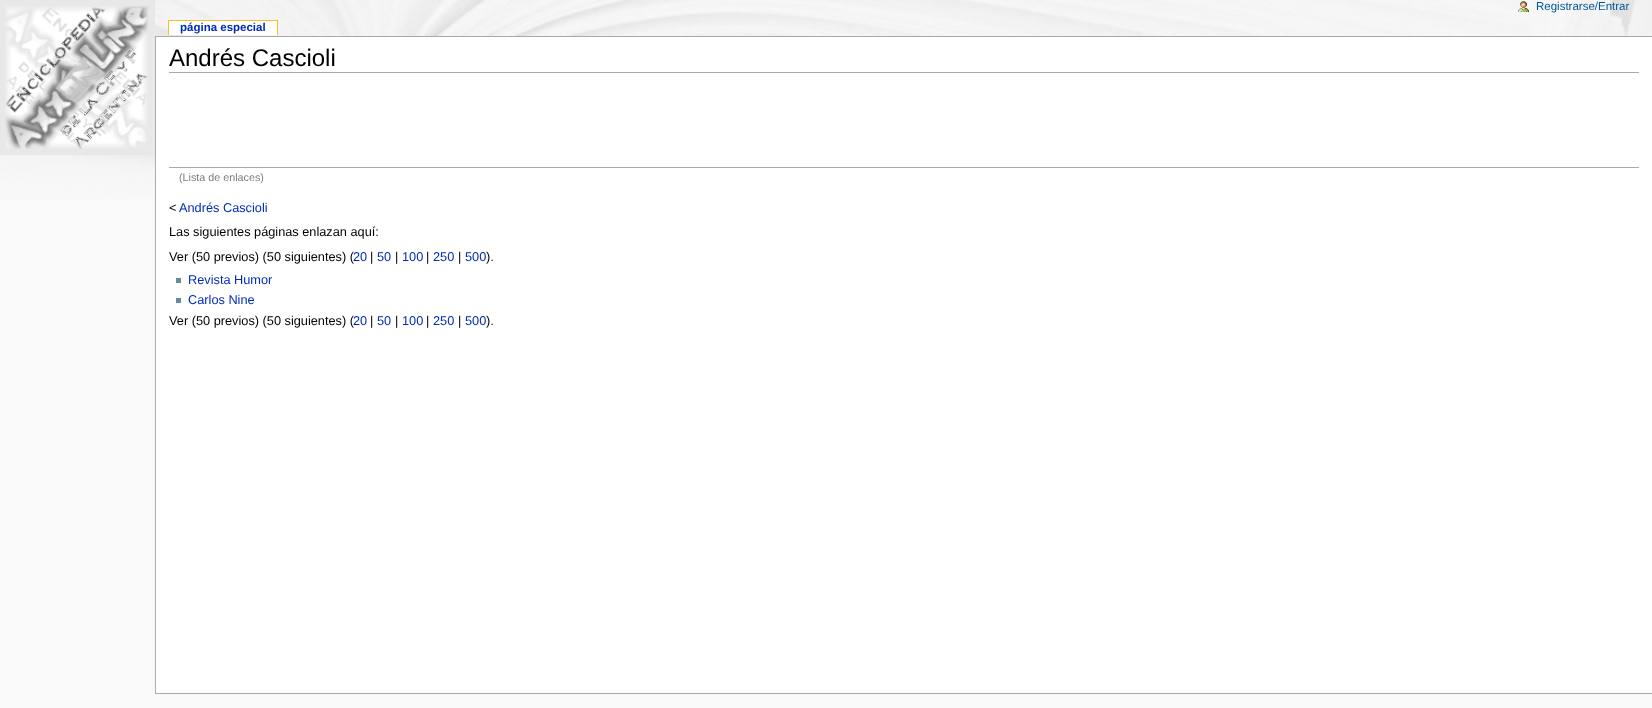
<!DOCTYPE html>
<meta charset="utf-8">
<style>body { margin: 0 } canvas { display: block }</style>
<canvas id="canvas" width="1652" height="708"></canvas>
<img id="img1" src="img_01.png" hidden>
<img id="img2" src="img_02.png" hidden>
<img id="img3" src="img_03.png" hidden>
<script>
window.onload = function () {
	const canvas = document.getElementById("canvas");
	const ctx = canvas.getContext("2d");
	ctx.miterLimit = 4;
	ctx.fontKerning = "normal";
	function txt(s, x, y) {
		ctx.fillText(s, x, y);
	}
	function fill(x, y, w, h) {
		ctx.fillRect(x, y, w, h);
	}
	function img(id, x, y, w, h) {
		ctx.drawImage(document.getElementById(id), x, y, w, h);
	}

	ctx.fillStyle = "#F9F9F9";
	fill(0, 0, 1652, 708);
	img("img1", 0, 0, 1652, 194);
	img("img2", 0, 0, 155, 155);
	img("img3", 1518, 1, 11, 11);
	ctx.fillStyle = "#FFFFFF";
	fill(169, 21, 108, 14);
	ctx.fillStyle = "#FABD23";
	fill(168, 20, 110, 1);
	fill(277, 20, 1, 15);
	fill(168, 20, 1, 15);
	ctx.fillStyle = "#FFFFFF";
	fill(156, 37, 1496, 656);
	ctx.fillStyle = "#AAAAAA";
	fill(155, 36, 1497, 1);
	fill(155, 693, 1497, 1);
	fill(155, 36, 1, 658);
	fill(169, 72, 1470, 1);
	fill(169, 167, 1470, 1);
	ctx.fillStyle = "#638C9C";
	fill(176, 278, 5, 5);
	fill(176, 298, 5, 5);
	ctx.font = "11.5px Liberation Sans";
	ctx.fillStyle = "#005896";
	txt("Registrarse/Entrar", 1536, 10);
	ctx.font = "bold 11.5px Liberation Sans";
	ctx.fillStyle = "#002BB8";
	txt("página especial", 180, 31);
	ctx.font = "24px Liberation Sans";
	ctx.fillStyle = "#000000";
	txt("Andrés Cascioli", 169, 66);
	ctx.font = "10.75px Liberation Sans";
	ctx.fillStyle = "#7D7D7D";
	txt("(Lista de enlaces)", 179, 181);
	ctx.font = "12.75px Liberation Sans";
	ctx.fillStyle = "#000000";
	txt("<", 169, 212);
	ctx.fillStyle = "#002BB8";
	txt("Andrés Cascioli", 179, 212);
	ctx.fillStyle = "#000000";
	txt("Las siguientes páginas enlazan aquí:", 169, 236);
	txt("Ver (50 previos) (50 siguientes) (", 169, 261);
	ctx.fillStyle = "#002BB8";
	txt("20", 353, 261);
	ctx.fillStyle = "#000000";
	txt("|", 370, 261);
	ctx.fillStyle = "#002BB8";
	txt("50", 377, 261);
	ctx.fillStyle = "#000000";
	txt("|", 395, 261);
	ctx.fillStyle = "#002BB8";
	txt("100", 402, 261);
	ctx.fillStyle = "#000000";
	txt("|", 426, 261);
	ctx.fillStyle = "#002BB8";
	txt("250", 433, 261);
	ctx.fillStyle = "#000000";
	txt("|", 458, 261);
	ctx.fillStyle = "#002BB8";
	txt("500", 465, 261);
	ctx.fillStyle = "#000000";
	txt(").", 486, 261);
	ctx.fillStyle = "#002BB8";
	txt("Revista Humor", 188, 284);
	txt("Carlos Nine", 188, 304);
	ctx.fillStyle = "#000000";
	txt("Ver (50 previos) (50 siguientes) (", 169, 325);
	ctx.fillStyle = "#002BB8";
	txt("20", 353, 325);
	ctx.fillStyle = "#000000";
	txt("|", 370, 325);
	ctx.fillStyle = "#002BB8";
	txt("50", 377, 325);
	ctx.fillStyle = "#000000";
	txt("|", 395, 325);
	ctx.fillStyle = "#002BB8";
	txt("100", 402, 325);
	ctx.fillStyle = "#000000";
	txt("|", 426, 325);
	ctx.fillStyle = "#002BB8";
	txt("250", 433, 325);
	ctx.fillStyle = "#000000";
	txt("|", 458, 325);
	ctx.fillStyle = "#002BB8";
	txt("500", 465, 325);
	ctx.fillStyle = "#000000";
	txt(").", 486, 325);
};
</script>
